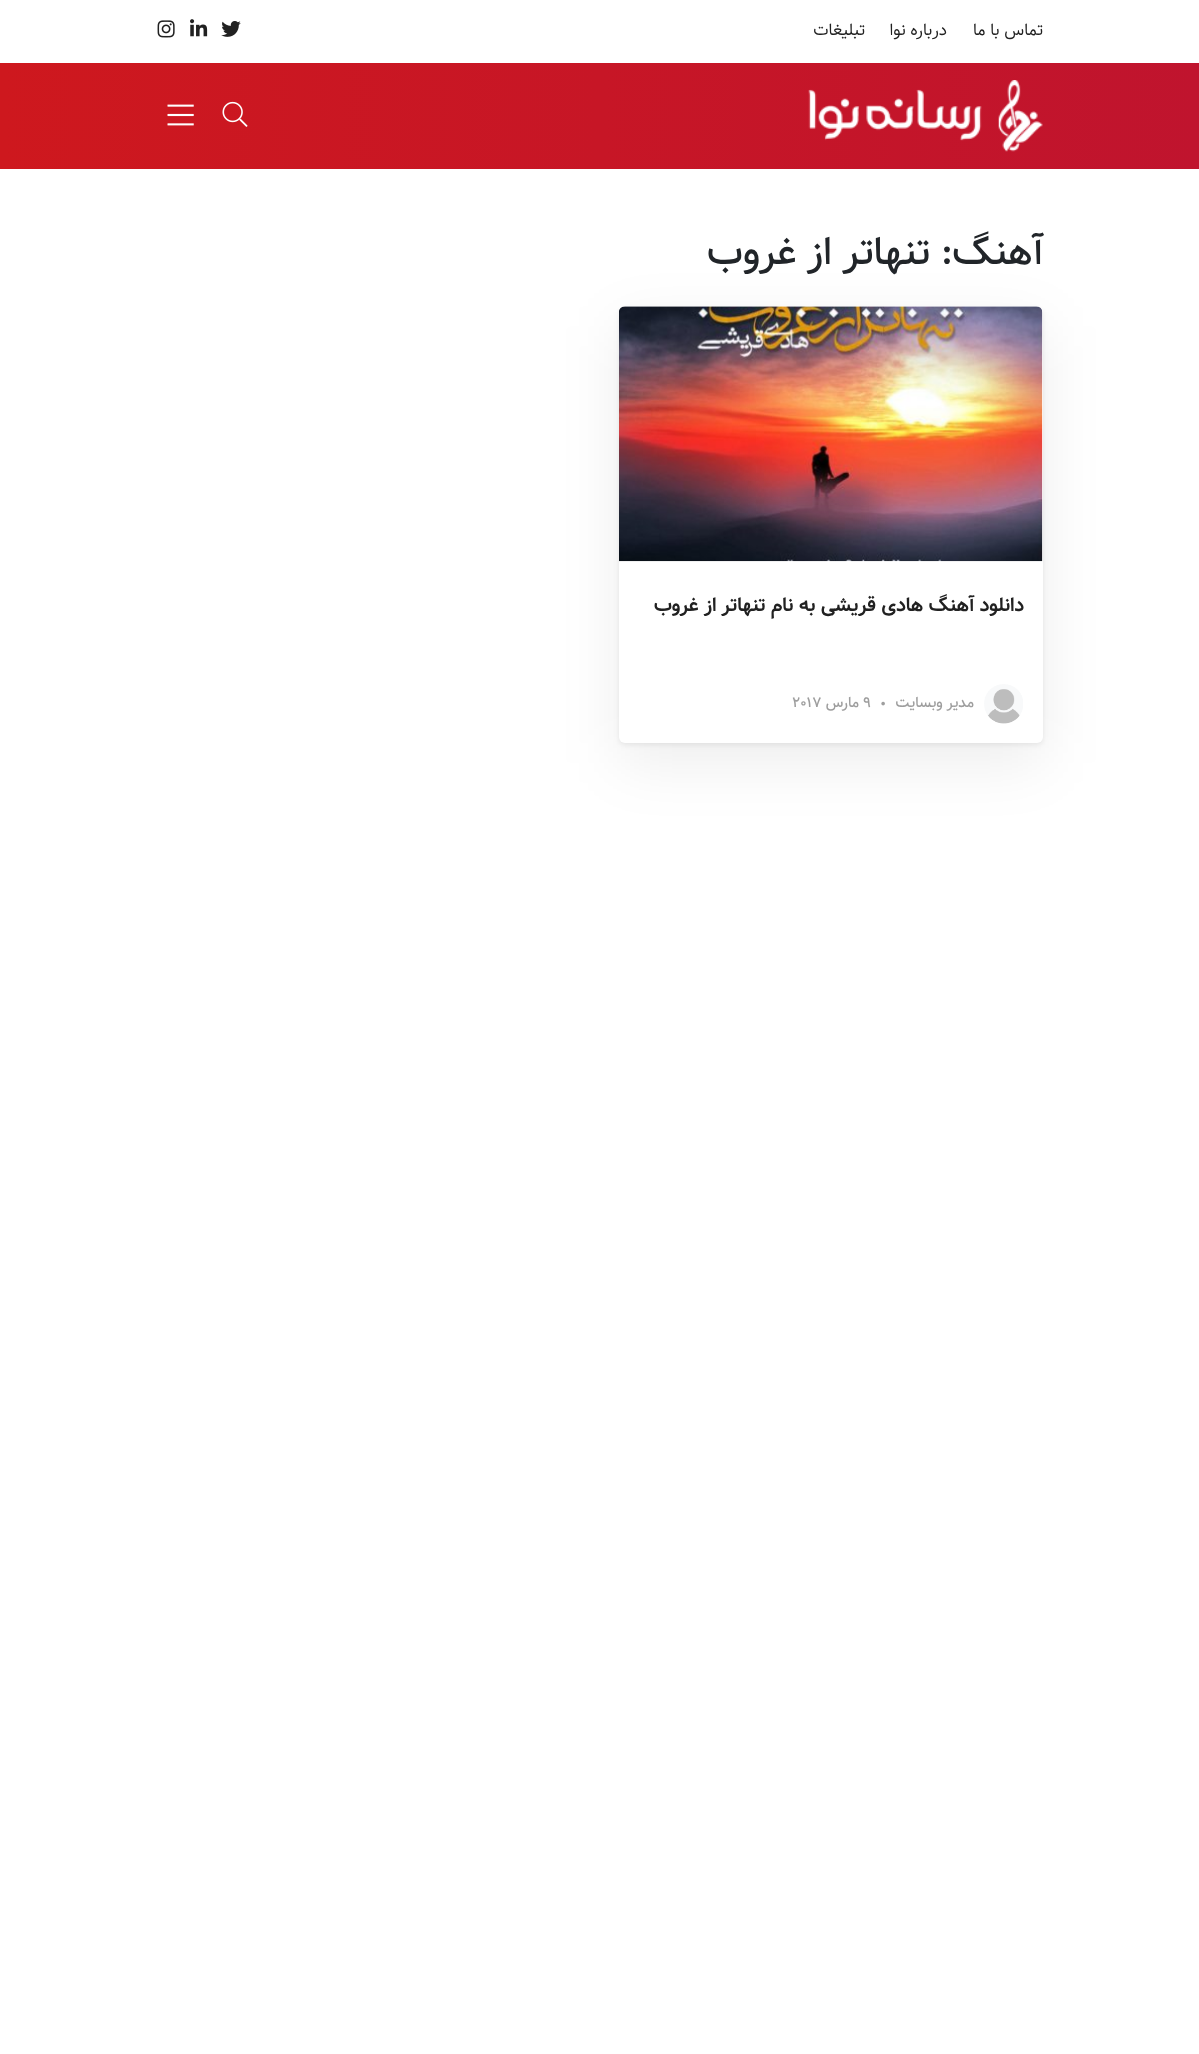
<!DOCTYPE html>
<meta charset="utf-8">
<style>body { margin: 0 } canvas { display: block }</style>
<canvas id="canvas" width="1199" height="2054"></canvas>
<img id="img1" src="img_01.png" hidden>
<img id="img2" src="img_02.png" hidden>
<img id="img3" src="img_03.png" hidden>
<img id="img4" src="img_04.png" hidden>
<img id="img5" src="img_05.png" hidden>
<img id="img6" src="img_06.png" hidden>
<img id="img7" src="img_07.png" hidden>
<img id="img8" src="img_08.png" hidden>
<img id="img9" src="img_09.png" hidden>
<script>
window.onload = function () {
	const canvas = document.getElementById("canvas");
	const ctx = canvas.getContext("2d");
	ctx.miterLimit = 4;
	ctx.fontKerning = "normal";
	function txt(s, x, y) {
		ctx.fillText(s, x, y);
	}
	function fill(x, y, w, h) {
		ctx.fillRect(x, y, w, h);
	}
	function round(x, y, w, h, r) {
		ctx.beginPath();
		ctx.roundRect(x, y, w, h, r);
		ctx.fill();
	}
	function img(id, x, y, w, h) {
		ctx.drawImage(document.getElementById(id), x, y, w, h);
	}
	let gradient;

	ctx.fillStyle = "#FFFFFF";
	fill(0, 0, 1199, 2054);
	img("img1", 221, 21, 20, 16);
	img("img2", 190, 19, 18, 18);
	img("img3", 157, 20, 18, 18);
	gradient = ctx.createLinearGradient(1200, 116, 0, 116);
	gradient.addColorStop(0, "#C0142E");
	gradient.addColorStop(1, "#CE181E");
	ctx.fillStyle = gradient;
	fill(0, 63, 1199, 106);
	img("img4", 808, 80, 235, 72);
	img("img5", 222, 101, 26, 26);
	img("img6", 167, 104, 27, 22);
	ctx.fillStyle = "rgba(0, 0, 0, 0.07)";
	ctx.filter = "blur(2.5px)";
	ctx.beginPath();
	ctx.roundRect(619, 309, 424, 436, 6);
	ctx.fill();
	ctx.filter = "none";
	ctx.filter = "blur(30px)";
	ctx.beginPath();
	ctx.roundRect(619, 326, 424, 437, 6);
	ctx.fill();
	ctx.filter = "none";
	ctx.fillStyle = "#FFFFFF";
	round(619, 306, 424, 437, 6);
	img("img7", 619, 306, 424, 256);
	img("img8", 984, 684, 39, 40);
	img("img9", 881, 701, 4, 5);
	ctx.direction = "rtl";
	ctx.font = "17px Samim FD";
	ctx.fillStyle = "#212121";
	txt("تماس با ما", 1043, 35);
	txt("درباره نوا", 947, 35);
	txt("تبلیغات", 865, 35);
	ctx.font = "500 40px Samim FD";
	ctx.fillStyle = "#212529";
	txt("آهنگ:", 1043, 264);
	txt("تنهاتر از غروب", 930, 264);
	ctx.font = "bold 20px Samim FD";
	ctx.fillStyle = "#212121";
	txt("دانلود آهنگ هادی قریشی به نام تنهاتر از غروب", 1024, 611);
	ctx.font = "500 15px Samim FD";
	ctx.fillStyle = "#9E9E9E";
	txt("مدیر وبسایت", 974, 707);
	ctx.direction = "ltr";
	txt("9", 863, 707);
	ctx.direction = "rtl";
	txt("مارس", 859, 707);
	ctx.direction = "ltr";
	txt("2017", 792, 707);
};
</script>
